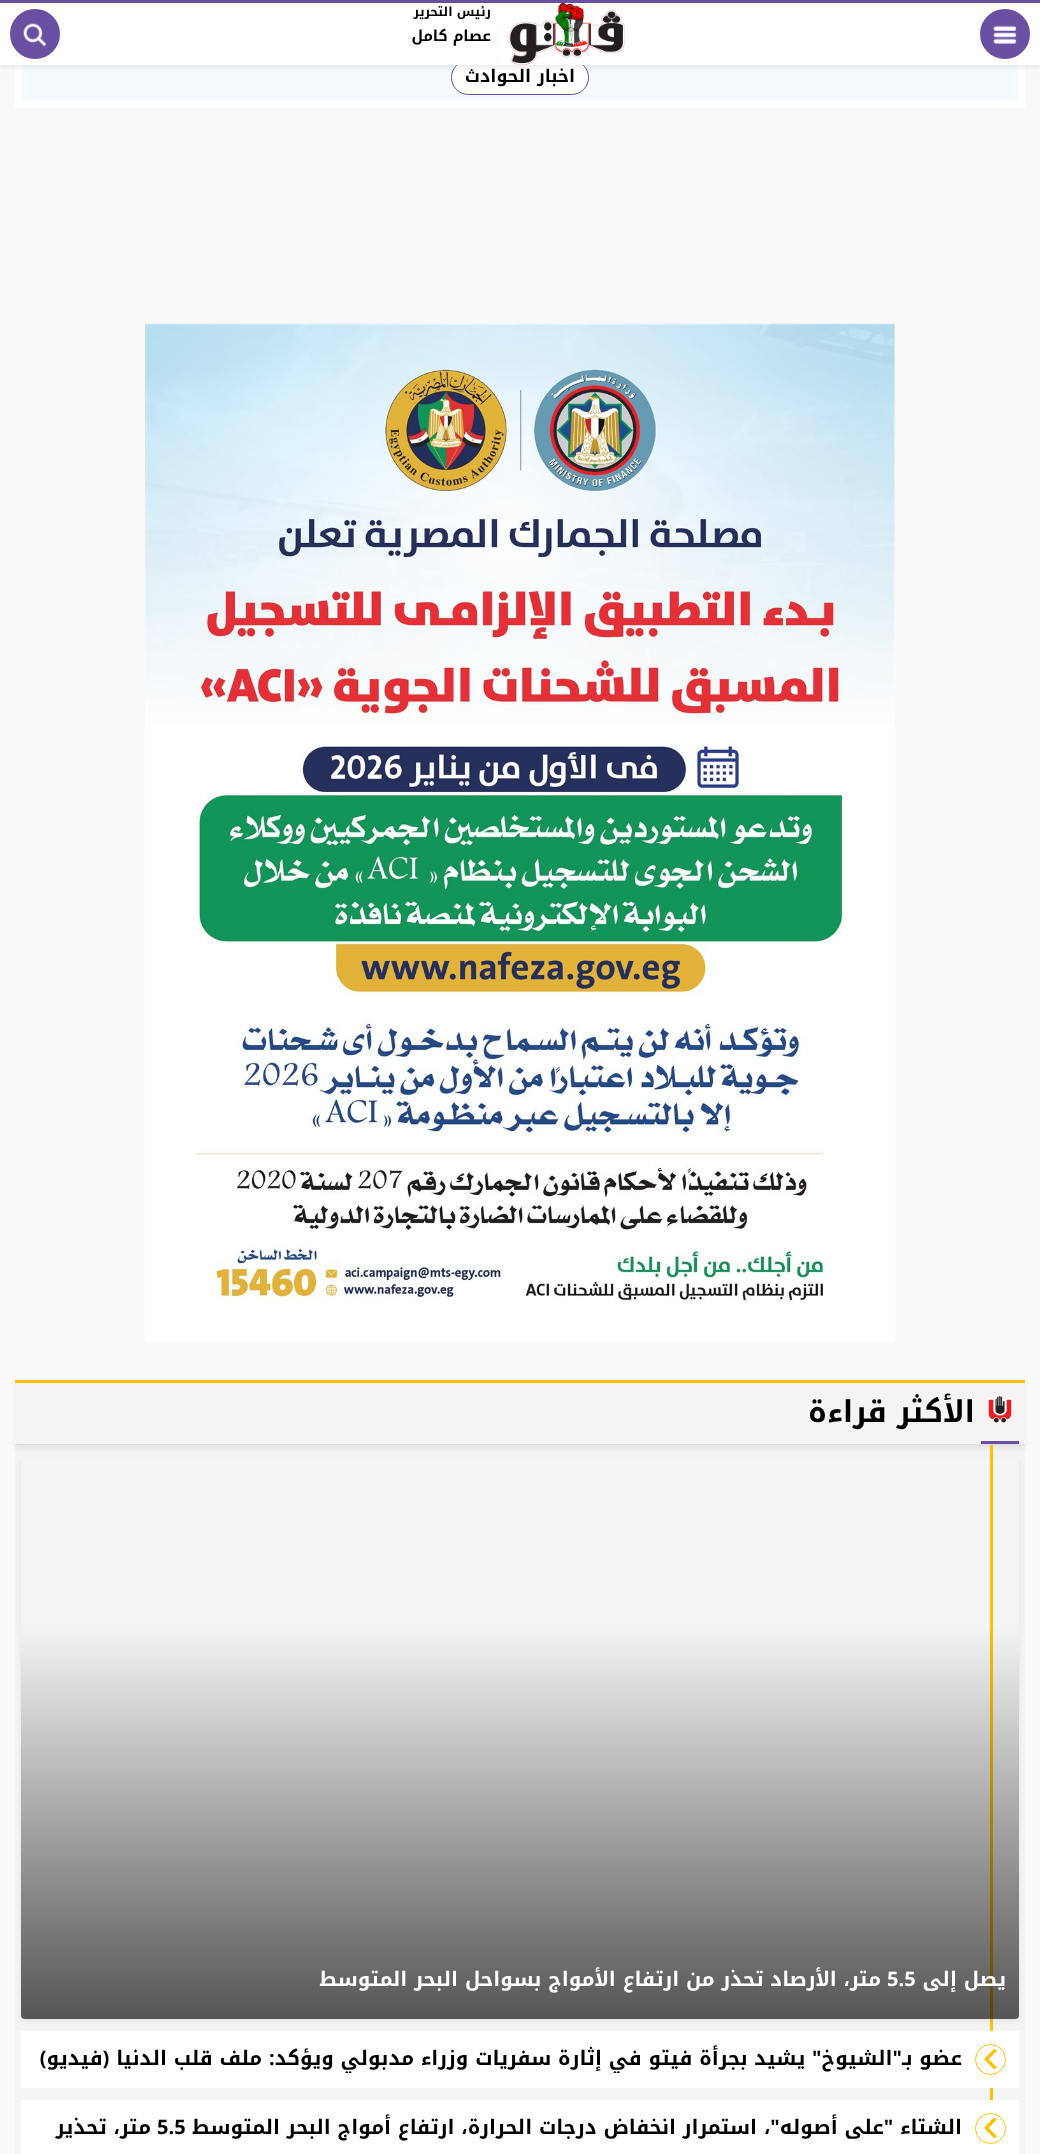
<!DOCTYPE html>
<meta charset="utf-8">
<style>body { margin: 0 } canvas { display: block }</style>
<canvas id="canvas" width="1040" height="2154"></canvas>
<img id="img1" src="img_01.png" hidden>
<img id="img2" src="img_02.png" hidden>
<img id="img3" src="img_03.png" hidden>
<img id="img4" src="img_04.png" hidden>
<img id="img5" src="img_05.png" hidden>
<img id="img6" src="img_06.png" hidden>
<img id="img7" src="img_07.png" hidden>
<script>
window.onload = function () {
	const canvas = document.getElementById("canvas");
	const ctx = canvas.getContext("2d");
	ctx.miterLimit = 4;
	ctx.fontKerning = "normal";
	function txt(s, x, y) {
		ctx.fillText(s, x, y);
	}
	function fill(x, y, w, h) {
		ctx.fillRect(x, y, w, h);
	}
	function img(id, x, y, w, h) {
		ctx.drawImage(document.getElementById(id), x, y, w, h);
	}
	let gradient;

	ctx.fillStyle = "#F9F9F9";
	fill(0, 0, 1040, 2154);
	ctx.fillStyle = "#FFFFFF";
	fill(15, 65, 1010, 43);
	ctx.fillStyle = "#F5FBFF";
	fill(21, 65, 998, 36);
	ctx.fillStyle = "#FFFFFF";
	ctx.beginPath();
	ctx.roundRect(451.5, 60.5, 137, 34, 17);
	ctx.fill();
	ctx.strokeStyle = "#6950A2";
	ctx.stroke();
	ctx.fillStyle = "rgba(0, 0, 0, 0.07)";
	ctx.filter = "blur(2.5px)";
	ctx.beginPath();
	ctx.rect(0, 3, 1040, 65);
	ctx.fill();
	ctx.filter = "none";
	ctx.fillStyle = "#FFFFFF";
	fill(0, 3, 1040, 62);
	ctx.fillStyle = "#6950A2";
	fill(0, 0, 1040, 3);
	ctx.beginPath();
	ctx.arc(1005, 34, 23, 0, Math.PI * 2);
	ctx.fill();
	ctx.lineWidth = 4;
	ctx.stroke();
	img("img1", 993, 25, 24, 19);
	img("img2", 508, 2, 117, 63);
	ctx.beginPath();
	ctx.arc(35, 34, 23, 0, Math.PI * 2);
	ctx.fill();
	ctx.stroke();
	img("img3", 23, 23, 24, 24);
	img("img4", 145, 323, 750, 1019);
	ctx.fillStyle = "#F4F4F4";
	fill(15, 1383, 1010, 771);
	ctx.save();
	ctx.beginPath();
	ctx.moveTo(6, 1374);
	ctx.lineTo(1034, 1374);
	ctx.lineTo(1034, 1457);
	ctx.lineTo(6, 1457);
	ctx.closePath();
	ctx.moveTo(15, 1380);
	ctx.lineTo(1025, 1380);
	ctx.lineTo(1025, 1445);
	ctx.lineTo(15, 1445);
	ctx.closePath();
	ctx.clip("evenodd");
	ctx.fillStyle = "rgba(0, 0, 0, 0.07)";
	ctx.filter = "blur(2.5px)";
	ctx.beginPath();
	ctx.rect(15, 1383, 1010, 65);
	ctx.fill();
	ctx.filter = "none";
	ctx.restore();
	ctx.fillStyle = "#FFC107";
	fill(15, 1380, 1010, 3);
	ctx.fillStyle = "#DCDCDC";
	fill(15, 1444, 1010, 1);
	img("img5", 987, 1395, 26, 29);
	ctx.fillStyle = "#6950A2";
	fill(981, 1441, 38, 3);
	ctx.fillStyle = "#FFC107";
	fill(990, 1445, 3, 655);
	ctx.save();
	ctx.beginPath();
	ctx.moveTo(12, 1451);
	ctx.lineTo(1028, 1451);
	ctx.lineTo(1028, 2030);
	ctx.lineTo(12, 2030);
	ctx.closePath();
	ctx.moveTo(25, 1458);
	ctx.lineTo(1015, 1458);
	ctx.bezierCurveTo(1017, 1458, 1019, 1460, 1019, 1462);
	ctx.lineTo(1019, 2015);
	ctx.bezierCurveTo(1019, 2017, 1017, 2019, 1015, 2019);
	ctx.lineTo(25, 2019);
	ctx.bezierCurveTo(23, 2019, 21, 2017, 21, 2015);
	ctx.lineTo(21, 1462);
	ctx.bezierCurveTo(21, 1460, 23, 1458, 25, 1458);
	ctx.closePath();
	ctx.clip("evenodd");
	ctx.fillStyle = "rgba(0, 0, 0, 0.07)";
	ctx.filter = "blur(2.5px)";
	ctx.beginPath();
	ctx.roundRect(21, 1460, 998, 561, 4);
	ctx.fill();
	ctx.filter = "none";
	ctx.restore();
	gradient = ctx.createLinearGradient(520, 1626, 520, 2019);
	gradient.addColorStop(0, "rgba(0, 0, 0, 0)");
	gradient.addColorStop(1, "rgba(0, 0, 0, 0.65)");
	ctx.fillStyle = gradient;
	ctx.beginPath();
	ctx.roundRect(21, 1626, 998, 393, [0, 0, 4, 4]);
	ctx.fill();
	ctx.fillStyle = "#FFFFFF";
	fill(21, 2031, 998, 57);
	ctx.beginPath();
	ctx.arc(990.5, 2059.5, 15, 0, Math.PI * 2);
	ctx.strokeStyle = "#FFC107";
	ctx.lineWidth = 1;
	ctx.stroke();
	img("img6", 984, 2049, 13, 21);
	fill(21, 2100, 998, 54);
	ctx.beginPath();
	ctx.arc(990.5, 2128.5, 15, 0, Math.PI * 2);
	ctx.stroke();
	img("img7", 984, 2117, 13, 21);
	ctx.direction = "rtl";
	ctx.font = "bold 12.5px Noto Kufi Arabic";
	ctx.fillStyle = "#000000";
	txt("رئيس التحرير", 491, 16);
	ctx.font = "bold 15px Noto Kufi Arabic";
	txt("عصام كامل", 491, 41);
	ctx.font = "bold 17.5px Noto Kufi Arabic";
	txt("اخبار الحوادث", 575, 82);
	ctx.font = "bold 30px Noto Kufi Arabic";
	txt("الأكثر قراءة", 975, 1422);
	ctx.font = "bold 20px Noto Kufi Arabic";
	ctx.fillStyle = "#FFFFFF";
	txt("يصل إلى", 1006, 1986);
	ctx.direction = "ltr";
	txt("5.5", 887, 1986);
	ctx.direction = "rtl";
	txt("متر، الأرصاد تحذر من ارتفاع الأمواج بسواحل البحر المتوسط", 881, 1986);
	ctx.save();
	ctx.beginPath();
	ctx.rect(34, 2044, 941, 29);
	ctx.clip();
	ctx.fillStyle = "#000000";
	txt("عضو بـ\"الشيوخ\" يشيد بجرأة فيتو في إثارة سفريات وزراء مدبولي ويؤكد: ملف قلب الدنيا (فيديو)", 962, 2065);
	ctx.restore();
	ctx.fillStyle = "#000000";
	txt("الشتاء \"على أصوله\"، استمرار انخفاض درجات الحرارة، ارتفاع أمواج البحر المتوسط", 962, 2134);
	ctx.direction = "ltr";
	txt("5.5", 157, 2134);
	ctx.direction = "rtl";
	txt("متر، تحذير", 151, 2134);
};
</script>
